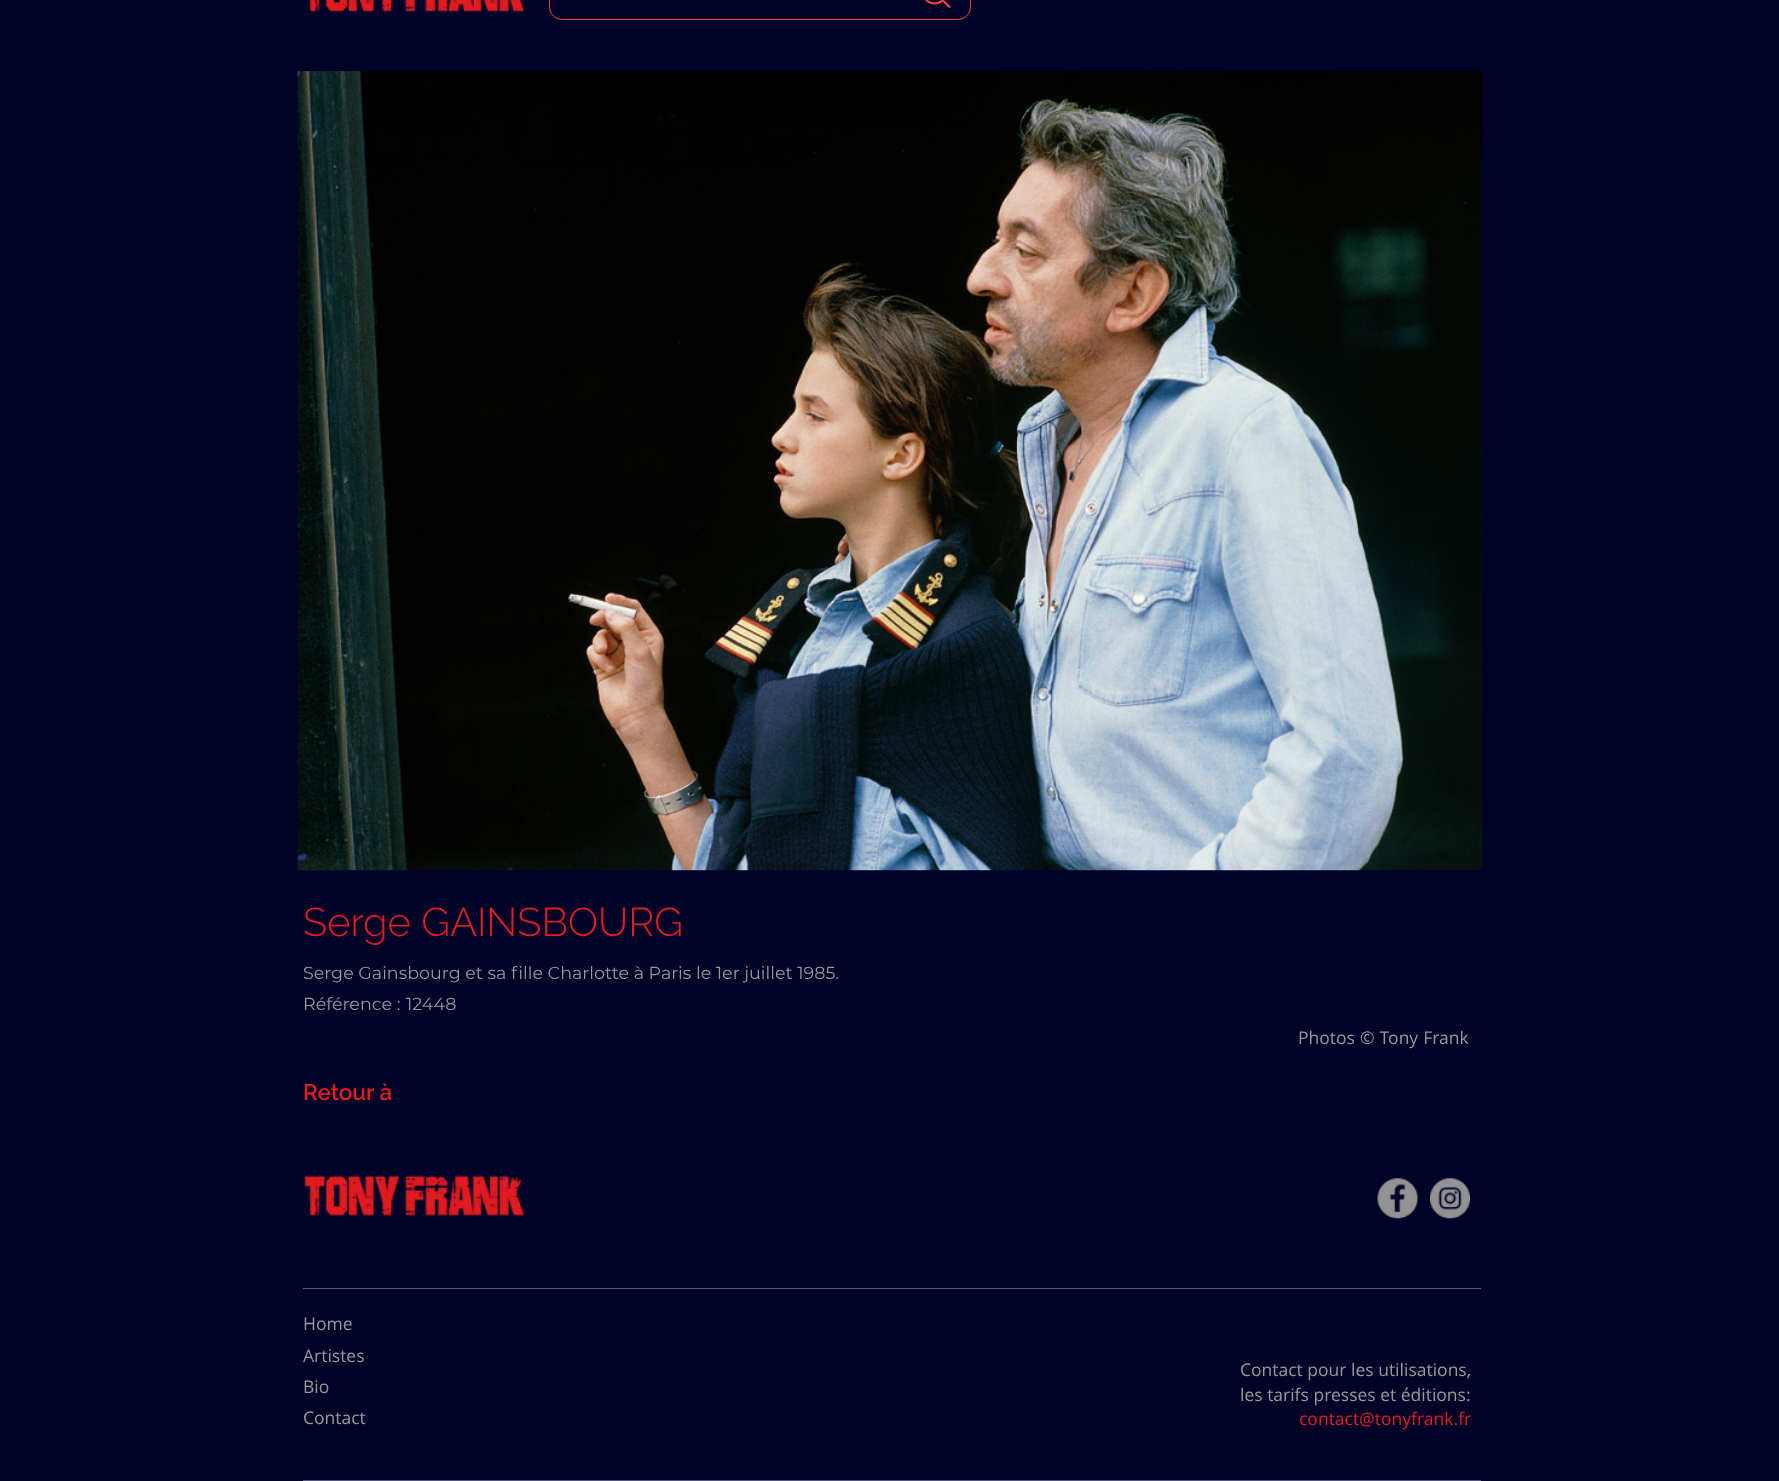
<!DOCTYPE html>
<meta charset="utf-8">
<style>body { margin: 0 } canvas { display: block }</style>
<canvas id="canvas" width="1779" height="1481"></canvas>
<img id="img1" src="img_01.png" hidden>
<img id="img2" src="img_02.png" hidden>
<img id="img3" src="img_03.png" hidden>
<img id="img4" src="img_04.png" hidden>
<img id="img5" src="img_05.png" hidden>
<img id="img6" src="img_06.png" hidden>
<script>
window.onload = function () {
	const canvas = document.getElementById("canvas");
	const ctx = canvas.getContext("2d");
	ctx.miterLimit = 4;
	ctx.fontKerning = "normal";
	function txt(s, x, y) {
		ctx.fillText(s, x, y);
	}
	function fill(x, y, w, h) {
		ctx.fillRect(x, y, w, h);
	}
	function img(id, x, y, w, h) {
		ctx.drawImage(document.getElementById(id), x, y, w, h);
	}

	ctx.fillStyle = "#010228";
	fill(0, 0, 1779, 1481);
	img("img1", 309, 0, 215, 12);
	ctx.beginPath();
	ctx.roundRect(549.5, -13.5, 421, 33, 12.5);
	ctx.strokeStyle = "#FF4040";
	ctx.stroke();
	img("img2", 925, 0, 26, 9);
	img("img3", 297, 71, 1186, 800);
	img("img4", 304, 1175, 220, 41);
	img("img5", 1377, 1178, 41, 41);
	img("img6", 1430, 1178, 40, 41);
	ctx.fillStyle = "#55567E";
	fill(303, 1288, 1178, 1);
	fill(303, 1480, 1178, 1);
	ctx.font = "300 40px Raleway";
	ctx.fillStyle = "#E21C21";
	txt("Serge GAINSBOURG", 303, 936);
	ctx.font = "17.5px Montserrat";
	ctx.fillStyle = "#999997";
	txt("Serge Gainsbourg et sa fille Charlotte à Paris le 1er juillet 1985.", 303, 979);
	txt("Référence :", 303, 1010);
	txt("12448", 406, 1010);
	ctx.wordSpacing = "0.5px";
	ctx.font = "17.5px Open Sans";
	txt("Photos © Tony Frank", 1298, 1044);
	ctx.wordSpacing = "0px";
	ctx.font = "600 22.5px Raleway";
	ctx.fillStyle = "#E21C21";
	txt("Retour à", 303, 1100);
	ctx.font = "17.5px Open Sans";
	ctx.fillStyle = "#999997";
	txt("Home", 303, 1330);
	txt("Artistes", 303, 1362);
	txt("Bio", 303, 1393);
	txt("Contact", 303, 1424);
	txt("Contact pour les utilisations,", 1240, 1376);
	txt("les tarifs presses et éditions:", 1240, 1401);
	ctx.fillStyle = "#E21C21";
	txt("contact@tonyfrank.fr", 1299, 1425);
};
</script>
